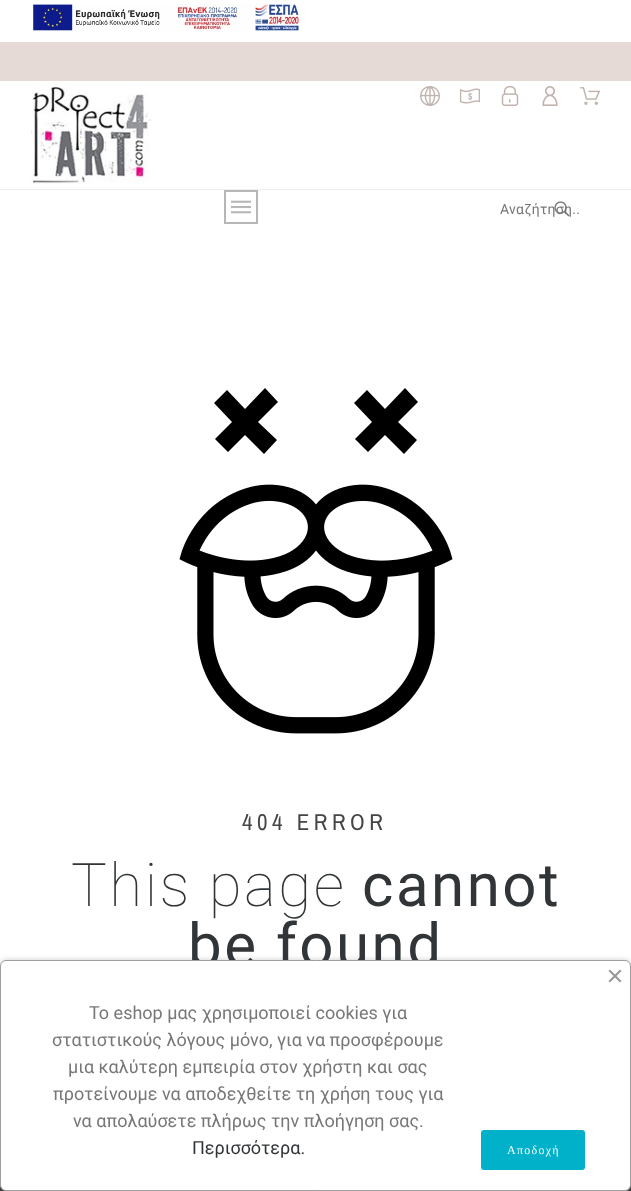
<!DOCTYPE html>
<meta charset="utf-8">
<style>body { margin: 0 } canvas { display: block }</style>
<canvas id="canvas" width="631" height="1191"></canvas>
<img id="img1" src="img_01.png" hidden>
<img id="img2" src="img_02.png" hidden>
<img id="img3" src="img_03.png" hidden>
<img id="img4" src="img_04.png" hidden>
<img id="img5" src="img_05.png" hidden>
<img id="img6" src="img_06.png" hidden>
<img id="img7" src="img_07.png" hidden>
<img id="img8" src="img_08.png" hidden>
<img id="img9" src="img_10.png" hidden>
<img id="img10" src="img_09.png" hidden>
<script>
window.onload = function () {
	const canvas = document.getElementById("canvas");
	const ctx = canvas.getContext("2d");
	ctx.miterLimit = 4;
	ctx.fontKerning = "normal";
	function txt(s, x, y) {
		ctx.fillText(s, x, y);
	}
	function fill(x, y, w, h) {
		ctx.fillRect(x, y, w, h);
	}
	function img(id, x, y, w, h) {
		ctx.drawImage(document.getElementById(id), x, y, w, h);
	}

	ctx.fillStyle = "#FFFFFF";
	fill(0, 0, 631, 1191);
	img("img1", 33, 4, 267, 27);
	ctx.fillStyle = "#E5DAD6";
	fill(0, 42, 631, 39);
	ctx.fillStyle = "#EEEEEE";
	fill(0, 189, 631, 1);
	img("img2", 31, 86, 120, 98);
	img("img3", 420, 86, 20, 20);
	img("img4", 460, 88, 20, 16);
	img("img5", 501, 86, 18, 20);
	img("img6", 542, 86, 16, 20);
	img("img7", 580, 87, 20, 18);
	ctx.strokeStyle = "#B6B6B6";
	ctx.lineWidth = 2;
	ctx.strokeRect(225, 191, 32, 32);
	img("img8", 231, 200, 20, 14);
	ctx.fillStyle = "#000000";
	ctx.beginPath();
	ctx.moveTo(278, 402);
	ctx.lineTo(265, 388);
	ctx.lineTo(245, 409);
	ctx.lineTo(227, 390);
	ctx.lineTo(214, 403);
	ctx.lineTo(232, 422);
	ctx.lineTo(215, 439);
	ctx.lineTo(228, 452);
	ctx.lineTo(245, 435);
	ctx.lineTo(264, 454);
	ctx.lineTo(277, 440);
	ctx.lineTo(258, 422);
	ctx.closePath();
	ctx.fill();
	ctx.beginPath();
	ctx.moveTo(418, 402);
	ctx.lineTo(405, 388);
	ctx.lineTo(385, 409);
	ctx.lineTo(367, 390);
	ctx.lineTo(354, 403);
	ctx.lineTo(372, 422);
	ctx.lineTo(355, 439);
	ctx.lineTo(368, 452);
	ctx.lineTo(385, 435);
	ctx.lineTo(404, 454);
	ctx.lineTo(417, 440);
	ctx.lineTo(398, 422);
	ctx.closePath();
	ctx.fill();
	img("img9", 179, 484, 274, 250);
	ctx.fillStyle = "#323232";
	fill(0, 1185, 631, 6);
	ctx.fillStyle = "#9E9E9E";
	ctx.filter = "blur(3.5px)";
	ctx.beginPath();
	ctx.roundRect(2, 962, 627, 227, 4);
	ctx.fill();
	ctx.filter = "none";
	ctx.letterSpacing = "0.3px";
	ctx.font = "14px Roboto";
	ctx.fillStyle = "#777777";
	txt("Αναζήτηση..", 500, 214);
	img("img10", 554, 201, 16, 16);
	ctx.letterSpacing = "4.5px";
	ctx.font = "23px Archivo Narrow";
	ctx.fillStyle = "#454545";
	txt("404 ERROR", 242, 830);
	ctx.letterSpacing = "2.5px";
	ctx.font = "100 60px Roboto";
	ctx.fillStyle = "#313537";
	txt("This page", 71, 906);
	ctx.font = "60px Roboto";
	txt("cannot", 362, 906);
	txt("be found", 188, 966);
	ctx.fillStyle = "#FFFFFF";
	ctx.beginPath();
	ctx.roundRect(0.5, 960.5, 630, 230, 5.5);
	ctx.fill();
	ctx.strokeStyle = "#9E9E9E";
	ctx.lineWidth = 1;
	ctx.stroke();
	ctx.fillStyle = "#999999";
	ctx.beginPath();
	ctx.moveTo(608.5, 981);
	ctx.lineTo(620, 969.5);
	ctx.lineTo(621.5, 971);
	ctx.lineTo(610, 982.5);
	ctx.closePath();
	ctx.fill();
	ctx.beginPath();
	ctx.moveTo(610, 969.5);
	ctx.lineTo(621.5, 981);
	ctx.lineTo(620, 982.5);
	ctx.lineTo(608.5, 971);
	ctx.closePath();
	ctx.fill();
	ctx.letterSpacing = "0px";
	ctx.font = "18px Roboto";
	ctx.fillStyle = "#777777";
	txt("Το eshop μας χρησιμοποιεί cookies για", 89, 1019);
	txt("στατιστικούς λόγους μόνο, για να προσφέρουμε", 52, 1046);
	txt("μια καλύτερη εμπειρία στον χρήστη και σας", 68, 1073);
	txt("προτείνουμε να αποδεχθείτε τη χρήση τους για", 53, 1100);
	txt("να απολαύσετε πλήρως την πλοήγηση σας.", 73, 1127);
	ctx.fillStyle = "#313537";
	txt("Περισσότερα.", 192, 1154);
	ctx.fillStyle = "#00B1C9";
	ctx.beginPath();
	ctx.roundRect(482, 1131, 102, 38, 2);
	ctx.fill();
	ctx.strokeStyle = "#00B1C9";
	ctx.lineWidth = 2;
	ctx.stroke();
	ctx.letterSpacing = "1.25px";
	ctx.font = "12px Liberation Serif";
	ctx.fillStyle = "#FFFFFF";
	txt("Αποδοχή", 507, 1154);
};
</script>
